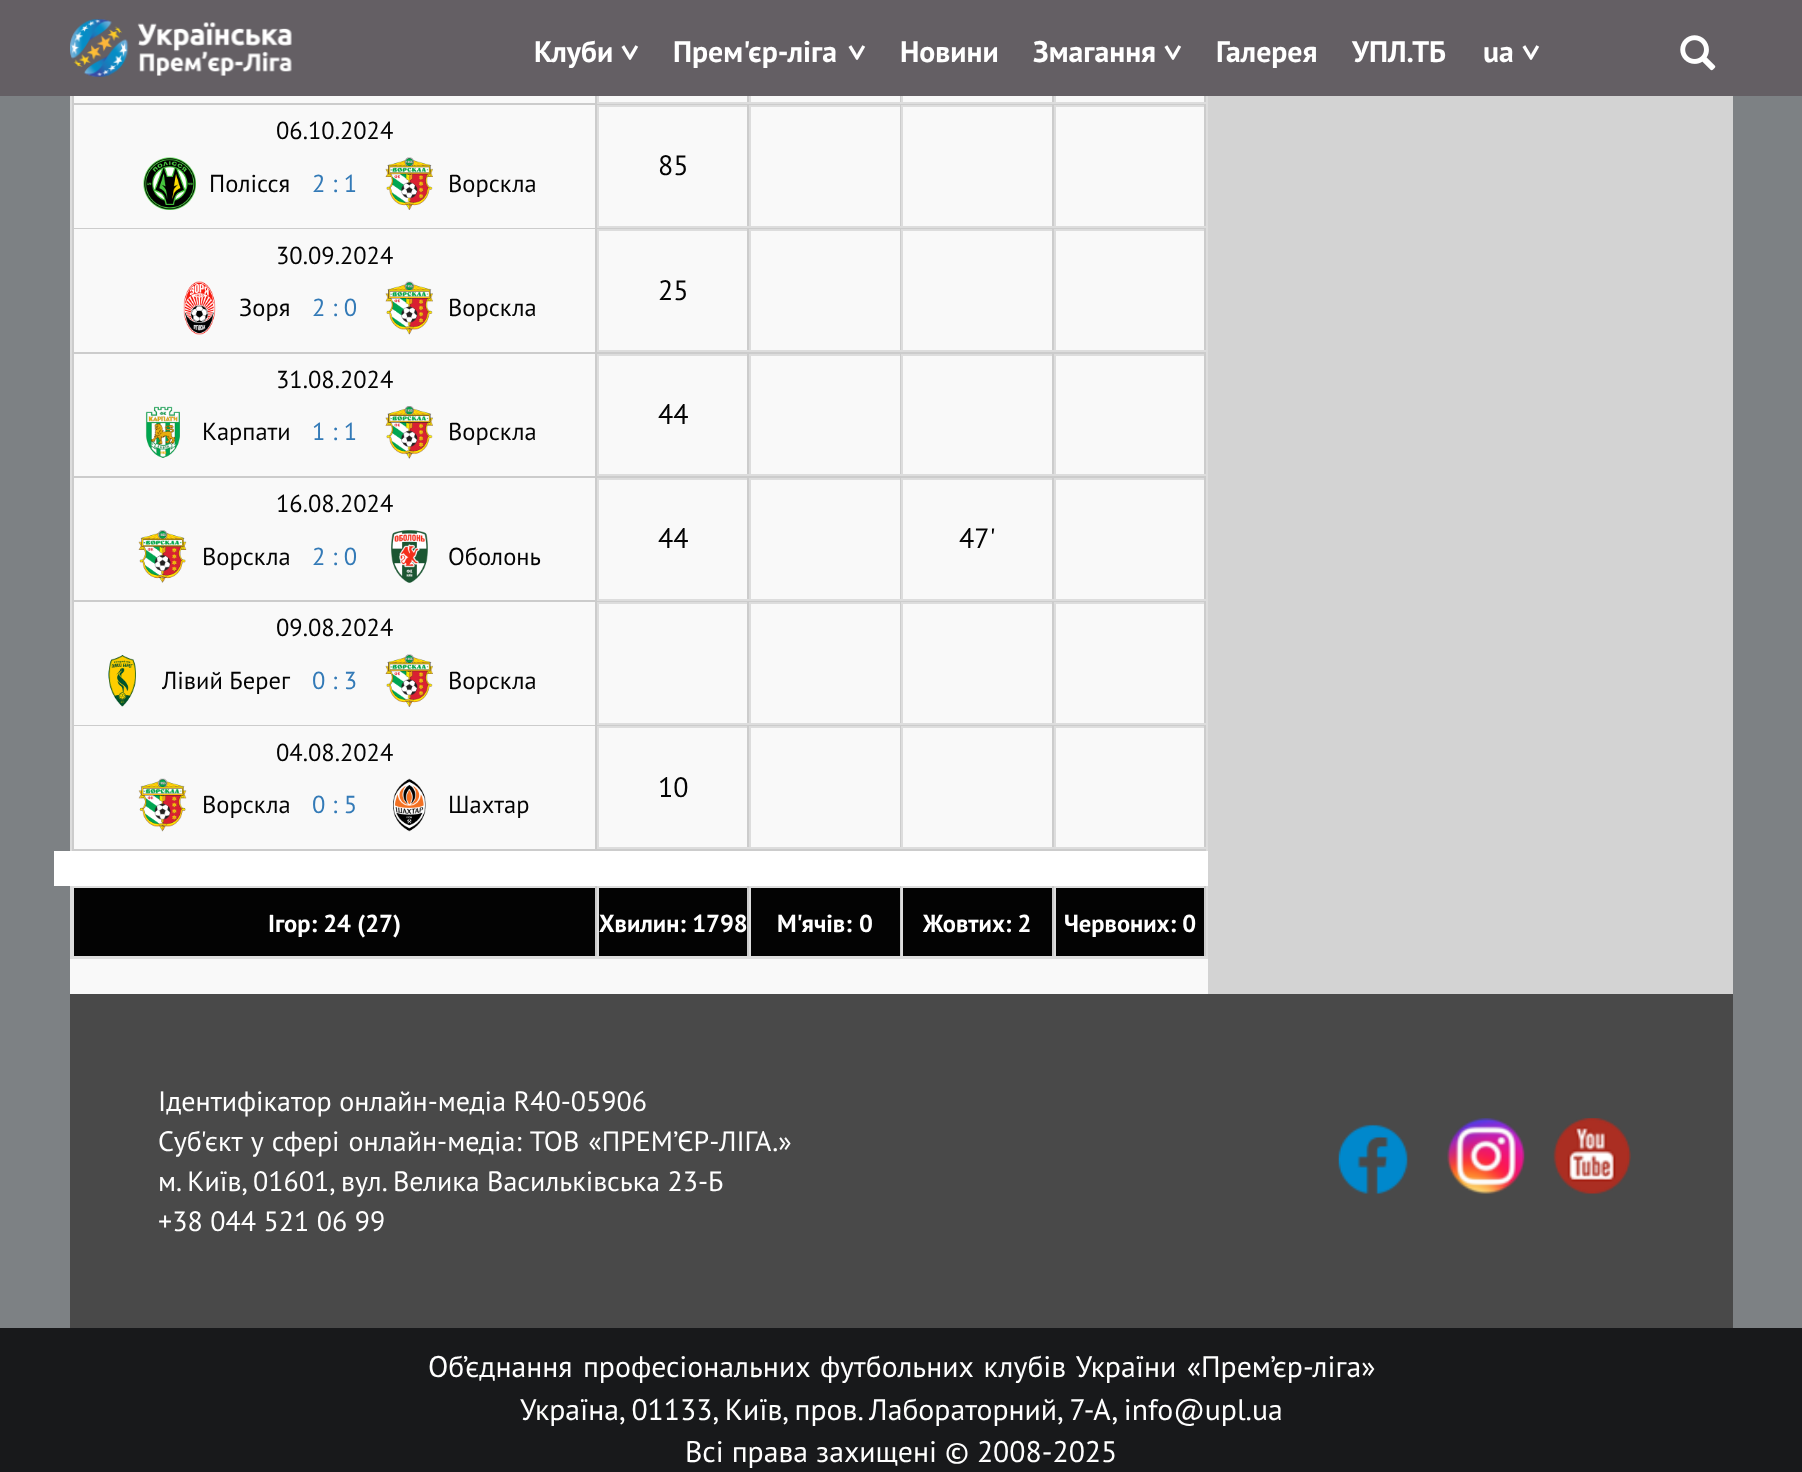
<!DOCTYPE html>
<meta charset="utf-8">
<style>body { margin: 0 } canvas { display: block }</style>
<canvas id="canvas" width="1802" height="1472"></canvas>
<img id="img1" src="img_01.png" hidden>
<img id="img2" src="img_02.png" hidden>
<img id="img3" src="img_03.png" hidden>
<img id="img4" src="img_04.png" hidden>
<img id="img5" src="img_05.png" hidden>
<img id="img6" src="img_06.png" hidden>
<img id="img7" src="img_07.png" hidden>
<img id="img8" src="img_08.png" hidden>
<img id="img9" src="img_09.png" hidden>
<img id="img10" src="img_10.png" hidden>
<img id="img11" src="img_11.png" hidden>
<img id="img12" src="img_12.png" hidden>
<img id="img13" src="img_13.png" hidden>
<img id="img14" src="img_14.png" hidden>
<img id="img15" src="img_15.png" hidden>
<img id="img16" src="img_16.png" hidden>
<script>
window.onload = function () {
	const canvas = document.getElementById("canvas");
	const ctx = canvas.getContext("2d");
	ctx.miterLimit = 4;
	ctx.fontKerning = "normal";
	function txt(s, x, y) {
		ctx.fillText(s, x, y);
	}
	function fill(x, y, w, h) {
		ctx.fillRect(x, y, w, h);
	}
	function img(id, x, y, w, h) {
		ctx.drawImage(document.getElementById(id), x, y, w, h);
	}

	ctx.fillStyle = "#7D8184";
	fill(0, 0, 1802, 1472);
	ctx.fillStyle = "#645F64";
	fill(0, 0, 1802, 96);
	img("img1", 70, 19, 222, 58);
	img("img2", 1680, 35, 36, 36);
	ctx.fillStyle = "#F9F9F9";
	fill(70, 96, 1138, 898);
	ctx.fillStyle = "#DDDDDD";
	fill(1206, 96, 2, 863);
	fill(70, 957, 1138, 2);
	fill(70, 96, 2, 863);
	ctx.fillStyle = "#CCCCCC";
	fill(72, 103, 1134, 2);
	fill(595, 96, 2, 7);
	fill(72, 96, 2, 7);
	fill(747, 96, 2, 7);
	ctx.fillStyle = "#DDDDDD";
	fill(597, 102, 152, 2);
	fill(597, 96, 2, 7);
	ctx.fillStyle = "#CCCCCC";
	fill(900, 96, 1, 7);
	ctx.fillStyle = "#DDDDDD";
	fill(749, 102, 152, 2);
	fill(749, 96, 2, 7);
	ctx.fillStyle = "#CCCCCC";
	fill(1052, 96, 2, 7);
	ctx.fillStyle = "#DDDDDD";
	fill(901, 102, 153, 2);
	fill(901, 96, 2, 7);
	ctx.fillStyle = "#CCCCCC";
	fill(1204, 96, 2, 7);
	ctx.fillStyle = "#DDDDDD";
	fill(1054, 102, 152, 2);
	fill(1054, 96, 2, 7);
	ctx.fillStyle = "#CCCCCC";
	fill(72, 228, 1134, 1);
	fill(595, 105, 2, 123);
	fill(72, 105, 2, 123);
	img("img3", 143, 157, 53, 53);
	img("img4", 385, 157, 48, 53);
	ctx.fillStyle = "#DDDDDD";
	fill(597, 105, 609, 2);
	ctx.fillStyle = "#CCCCCC";
	fill(747, 105, 2, 123);
	ctx.fillStyle = "#DDDDDD";
	fill(597, 226, 152, 2);
	fill(597, 105, 2, 123);
	ctx.fillStyle = "#CCCCCC";
	fill(900, 105, 1, 123);
	ctx.fillStyle = "#DDDDDD";
	fill(749, 226, 152, 2);
	fill(749, 105, 2, 123);
	ctx.fillStyle = "#CCCCCC";
	fill(1052, 105, 2, 123);
	ctx.fillStyle = "#DDDDDD";
	fill(901, 226, 153, 2);
	fill(901, 105, 2, 123);
	ctx.fillStyle = "#CCCCCC";
	fill(1204, 105, 2, 123);
	ctx.fillStyle = "#DDDDDD";
	fill(1054, 226, 152, 2);
	fill(1054, 105, 2, 123);
	ctx.fillStyle = "#CCCCCC";
	fill(72, 352, 1134, 2);
	fill(595, 229, 2, 123);
	fill(72, 229, 2, 123);
	img("img5", 183, 281, 33, 54);
	img("img6", 385, 281, 48, 54);
	ctx.fillStyle = "#DDDDDD";
	fill(597, 229, 609, 2);
	ctx.fillStyle = "#CCCCCC";
	fill(747, 229, 2, 123);
	ctx.fillStyle = "#DDDDDD";
	fill(597, 350, 152, 2);
	fill(597, 229, 2, 123);
	ctx.fillStyle = "#CCCCCC";
	fill(900, 229, 1, 123);
	ctx.fillStyle = "#DDDDDD";
	fill(749, 350, 152, 2);
	fill(749, 229, 2, 123);
	ctx.fillStyle = "#CCCCCC";
	fill(1052, 229, 2, 123);
	ctx.fillStyle = "#DDDDDD";
	fill(901, 350, 153, 2);
	fill(901, 229, 2, 123);
	ctx.fillStyle = "#CCCCCC";
	fill(1204, 229, 2, 123);
	ctx.fillStyle = "#DDDDDD";
	fill(1054, 350, 152, 2);
	fill(1054, 229, 2, 123);
	ctx.fillStyle = "#CCCCCC";
	fill(72, 476, 1134, 2);
	fill(595, 354, 2, 122);
	fill(72, 354, 2, 122);
	img("img7", 145, 406, 35, 52);
	img("img8", 385, 406, 48, 53);
	ctx.fillStyle = "#DDDDDD";
	fill(597, 354, 609, 2);
	ctx.fillStyle = "#CCCCCC";
	fill(747, 354, 2, 122);
	ctx.fillStyle = "#DDDDDD";
	fill(597, 474, 152, 2);
	fill(597, 354, 2, 122);
	ctx.fillStyle = "#CCCCCC";
	fill(900, 354, 1, 122);
	ctx.fillStyle = "#DDDDDD";
	fill(749, 474, 152, 2);
	fill(749, 354, 2, 122);
	ctx.fillStyle = "#CCCCCC";
	fill(1052, 354, 2, 122);
	ctx.fillStyle = "#DDDDDD";
	fill(901, 474, 153, 2);
	fill(901, 354, 2, 122);
	ctx.fillStyle = "#CCCCCC";
	fill(1204, 354, 2, 122);
	ctx.fillStyle = "#DDDDDD";
	fill(1054, 474, 152, 2);
	fill(1054, 354, 2, 122);
	ctx.fillStyle = "#CCCCCC";
	fill(72, 600, 1134, 2);
	fill(595, 478, 2, 122);
	fill(72, 478, 2, 122);
	img("img9", 138, 530, 49, 53);
	img("img10", 391, 530, 37, 53);
	ctx.fillStyle = "#DDDDDD";
	fill(597, 478, 609, 2);
	ctx.fillStyle = "#CCCCCC";
	fill(747, 478, 2, 122);
	ctx.fillStyle = "#DDDDDD";
	fill(597, 599, 152, 2);
	fill(597, 478, 2, 122);
	ctx.fillStyle = "#CCCCCC";
	fill(900, 478, 1, 122);
	ctx.fillStyle = "#DDDDDD";
	fill(749, 599, 152, 2);
	fill(749, 478, 2, 122);
	ctx.fillStyle = "#CCCCCC";
	fill(1052, 478, 2, 122);
	ctx.fillStyle = "#DDDDDD";
	fill(901, 599, 153, 2);
	fill(901, 478, 2, 122);
	ctx.fillStyle = "#CCCCCC";
	fill(1204, 478, 2, 122);
	ctx.fillStyle = "#DDDDDD";
	fill(1054, 599, 152, 2);
	fill(1054, 478, 2, 122);
	ctx.fillStyle = "#CCCCCC";
	fill(72, 725, 1134, 1);
	ctx.fillStyle = "#DDDDDD";
	fill(597, 602, 609, 2);
	ctx.fillStyle = "#CCCCCC";
	fill(747, 602, 2, 123);
	ctx.fillStyle = "#DDDDDD";
	fill(597, 723, 152, 2);
	fill(597, 602, 2, 123);
	ctx.fillStyle = "#CCCCCC";
	fill(595, 602, 2, 123);
	fill(72, 602, 2, 123);
	img("img11", 108, 655, 28, 52);
	img("img4", 385, 654, 48, 53);
	fill(900, 602, 1, 123);
	ctx.fillStyle = "#DDDDDD";
	fill(749, 723, 152, 2);
	fill(749, 602, 2, 123);
	ctx.fillStyle = "#CCCCCC";
	fill(1052, 602, 2, 123);
	ctx.fillStyle = "#DDDDDD";
	fill(901, 723, 153, 2);
	fill(901, 602, 2, 123);
	ctx.fillStyle = "#CCCCCC";
	fill(1204, 602, 2, 123);
	ctx.fillStyle = "#DDDDDD";
	fill(1054, 723, 152, 2);
	fill(1054, 602, 2, 123);
	ctx.fillStyle = "#CCCCCC";
	fill(72, 849, 1134, 2);
	fill(595, 726, 2, 123);
	fill(72, 726, 2, 123);
	img("img12", 138, 778, 49, 54);
	img("img13", 393, 778, 33, 54);
	ctx.fillStyle = "#DDDDDD";
	fill(597, 726, 609, 2);
	ctx.fillStyle = "#CCCCCC";
	fill(747, 726, 2, 123);
	ctx.fillStyle = "#DDDDDD";
	fill(597, 847, 152, 2);
	fill(597, 726, 2, 123);
	ctx.fillStyle = "#CCCCCC";
	fill(900, 726, 1, 123);
	ctx.fillStyle = "#DDDDDD";
	fill(749, 847, 152, 2);
	fill(749, 726, 2, 123);
	ctx.fillStyle = "#CCCCCC";
	fill(1052, 726, 2, 123);
	ctx.fillStyle = "#DDDDDD";
	fill(901, 847, 153, 2);
	fill(901, 726, 2, 123);
	ctx.fillStyle = "#CCCCCC";
	fill(1204, 726, 2, 123);
	ctx.fillStyle = "#DDDDDD";
	fill(1054, 847, 152, 2);
	fill(1054, 726, 2, 123);
	ctx.fillStyle = "#FFFFFF";
	fill(54, 851, 1154, 35);
	ctx.fillStyle = "#030303";
	fill(74, 888, 521, 68);
	ctx.fillStyle = "#DDDDDD";
	fill(72, 886, 1134, 2);
	ctx.fillStyle = "#CCCCCC";
	fill(595, 886, 2, 71);
	ctx.fillStyle = "#DDDDDD";
	fill(72, 956, 525, 1);
	fill(72, 886, 2, 71);
	ctx.fillStyle = "#030303";
	fill(599, 888, 148, 68);
	ctx.fillStyle = "#CCCCCC";
	fill(747, 886, 2, 71);
	ctx.fillStyle = "#DDDDDD";
	fill(597, 956, 152, 1);
	fill(597, 886, 2, 71);
	ctx.fillStyle = "#030303";
	fill(751, 888, 149, 68);
	ctx.fillStyle = "#CCCCCC";
	fill(900, 886, 1, 71);
	ctx.fillStyle = "#DDDDDD";
	fill(749, 956, 152, 1);
	fill(749, 886, 2, 71);
	ctx.fillStyle = "#030303";
	fill(903, 888, 149, 68);
	ctx.fillStyle = "#CCCCCC";
	fill(1052, 886, 2, 71);
	ctx.fillStyle = "#DDDDDD";
	fill(901, 956, 153, 1);
	fill(901, 886, 2, 71);
	ctx.fillStyle = "#030303";
	fill(1056, 888, 148, 68);
	ctx.fillStyle = "#CCCCCC";
	fill(1204, 886, 2, 71);
	ctx.fillStyle = "#DDDDDD";
	fill(1054, 956, 152, 1);
	fill(1054, 886, 2, 71);
	ctx.fillStyle = "#D3D3D3";
	fill(1208, 96, 525, 898);
	ctx.fillStyle = "#494949";
	fill(70, 994, 1663, 334);
	img("img14", 1338, 1124, 70, 70);
	img("img15", 1447, 1118, 78, 76);
	img("img16", 1553, 1118, 78, 76);
	ctx.fillStyle = "#18191B";
	fill(0, 1328, 1802, 144);
	ctx.font = "bold 29.75px PT Sans";
	ctx.fillStyle = "#FFFFFF";
	txt("Клуби", 534, 62);
	ctx.font = "bold 32px 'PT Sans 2'";
	ctx.save();
	ctx.translate(619, 44);
	ctx.rotate(90 * Math.PI / 180);
	ctx.fillText(">", 0, 0);
	ctx.restore();
	ctx.font = "bold 29.75px PT Sans";
	txt("Прем'єр-ліга", 673, 62);
	ctx.font = "bold 32px 'PT Sans 2'";
	ctx.save();
	ctx.translate(846, 44);
	ctx.rotate(90 * Math.PI / 180);
	ctx.fillText(">", 0, 0);
	ctx.restore();
	ctx.font = "bold 29.75px PT Sans";
	txt("Новини", 900, 62);
	txt("Змагання", 1033, 62);
	ctx.font = "bold 32px 'PT Sans 2'";
	ctx.save();
	ctx.translate(1162, 44);
	ctx.rotate(90 * Math.PI / 180);
	ctx.fillText(">", 0, 0);
	ctx.restore();
	ctx.font = "bold 29.75px PT Sans";
	txt("Галерея", 1216, 62);
	txt("УПЛ.ТБ", 1352, 62);
	txt("ua", 1483, 62);
	ctx.font = "bold 32px 'PT Sans 2'";
	ctx.save();
	ctx.translate(1520, 44);
	ctx.rotate(90 * Math.PI / 180);
	ctx.fillText(">", 0, 0);
	ctx.restore();
	ctx.font = "24.5px PT Sans";
	ctx.fillStyle = "#030303";
	txt("06.10.2024", 276, 139);
	txt("Полісся", 209, 192);
	ctx.fillStyle = "#337AB7";
	txt("2 : 1", 312, 192);
	ctx.fillStyle = "#030303";
	txt("Ворскла", 448, 192);
	ctx.font = "28px PT Sans";
	txt("85", 658, 175);
	ctx.font = "24.5px PT Sans";
	txt("30.09.2024", 276, 264);
	txt("Зоря", 239, 316);
	ctx.fillStyle = "#337AB7";
	txt("2 : 0", 312, 316);
	ctx.fillStyle = "#030303";
	txt("Ворскла", 448, 316);
	ctx.font = "28px PT Sans";
	txt("25", 658, 300);
	ctx.font = "24.5px PT Sans";
	txt("31.08.2024", 276, 388);
	txt("Карпати", 202, 440);
	ctx.fillStyle = "#337AB7";
	txt("1 : 1", 312, 440);
	ctx.fillStyle = "#030303";
	txt("Ворскла", 448, 440);
	ctx.font = "28px PT Sans";
	txt("44", 658, 424);
	ctx.font = "24.5px PT Sans";
	txt("16.08.2024", 276, 512);
	txt("Ворскла", 202, 565);
	ctx.fillStyle = "#337AB7";
	txt("2 : 0", 312, 565);
	ctx.fillStyle = "#030303";
	txt("Оболонь", 448, 565);
	ctx.font = "28px PT Sans";
	txt("44", 658, 548);
	txt("47'", 959, 548);
	ctx.font = "24.5px PT Sans";
	txt("09.08.2024", 276, 636);
	txt("Лівий Берег", 162, 689);
	ctx.fillStyle = "#337AB7";
	txt("0 : 3", 312, 689);
	ctx.fillStyle = "#030303";
	txt("Ворскла", 448, 689);
	txt("04.08.2024", 276, 761);
	txt("Ворскла", 202, 813);
	ctx.fillStyle = "#337AB7";
	txt("0 : 5", 312, 813);
	ctx.fillStyle = "#030303";
	txt("Шахтар", 448, 813);
	ctx.font = "28px PT Sans";
	txt("10", 658, 797);
	ctx.font = "bold 24.5px PT Sans";
	ctx.fillStyle = "#FFFFFF";
	txt("Ігор: 24 (27)", 268, 932);
	txt("Хвилин: 1798", 599, 932);
	ctx.wordSpacing = "1px";
	txt("М'ячів: 0", 777, 932);
	ctx.wordSpacing = "0px";
	txt("Жовтих: 2", 923, 932);
	txt("Червоних: 0", 1064, 932);
	ctx.font = "28px PT Sans";
	txt("Ідентифікатор онлайн-медіа R40-05906", 158, 1111);
	ctx.wordSpacing = "1.5px";
	txt("Суб'єкт у сфері онлайн-медіа: ТОВ «ПРЕМ’ЄР-ЛІГА.»", 158, 1151);
	ctx.wordSpacing = "0px";
	txt("м. Київ, 01601, вул. Велика Васильківська 23-Б", 158, 1191);
	txt("+38 044 521 06 99", 158, 1231);
	ctx.wordSpacing = "2.5px";
	ctx.font = "29.75px PT Sans";
	txt("Об’єднання професіональних футбольних клубів України «Прем’єр-ліга»", 428, 1377);
	ctx.wordSpacing = "0px";
	txt("Україна, 01133, Київ, пров. Лабораторний, 7-А, info@upl.ua", 520, 1420);
	txt("Всі права захищені © 2008-2025", 685, 1462);
};
</script>
